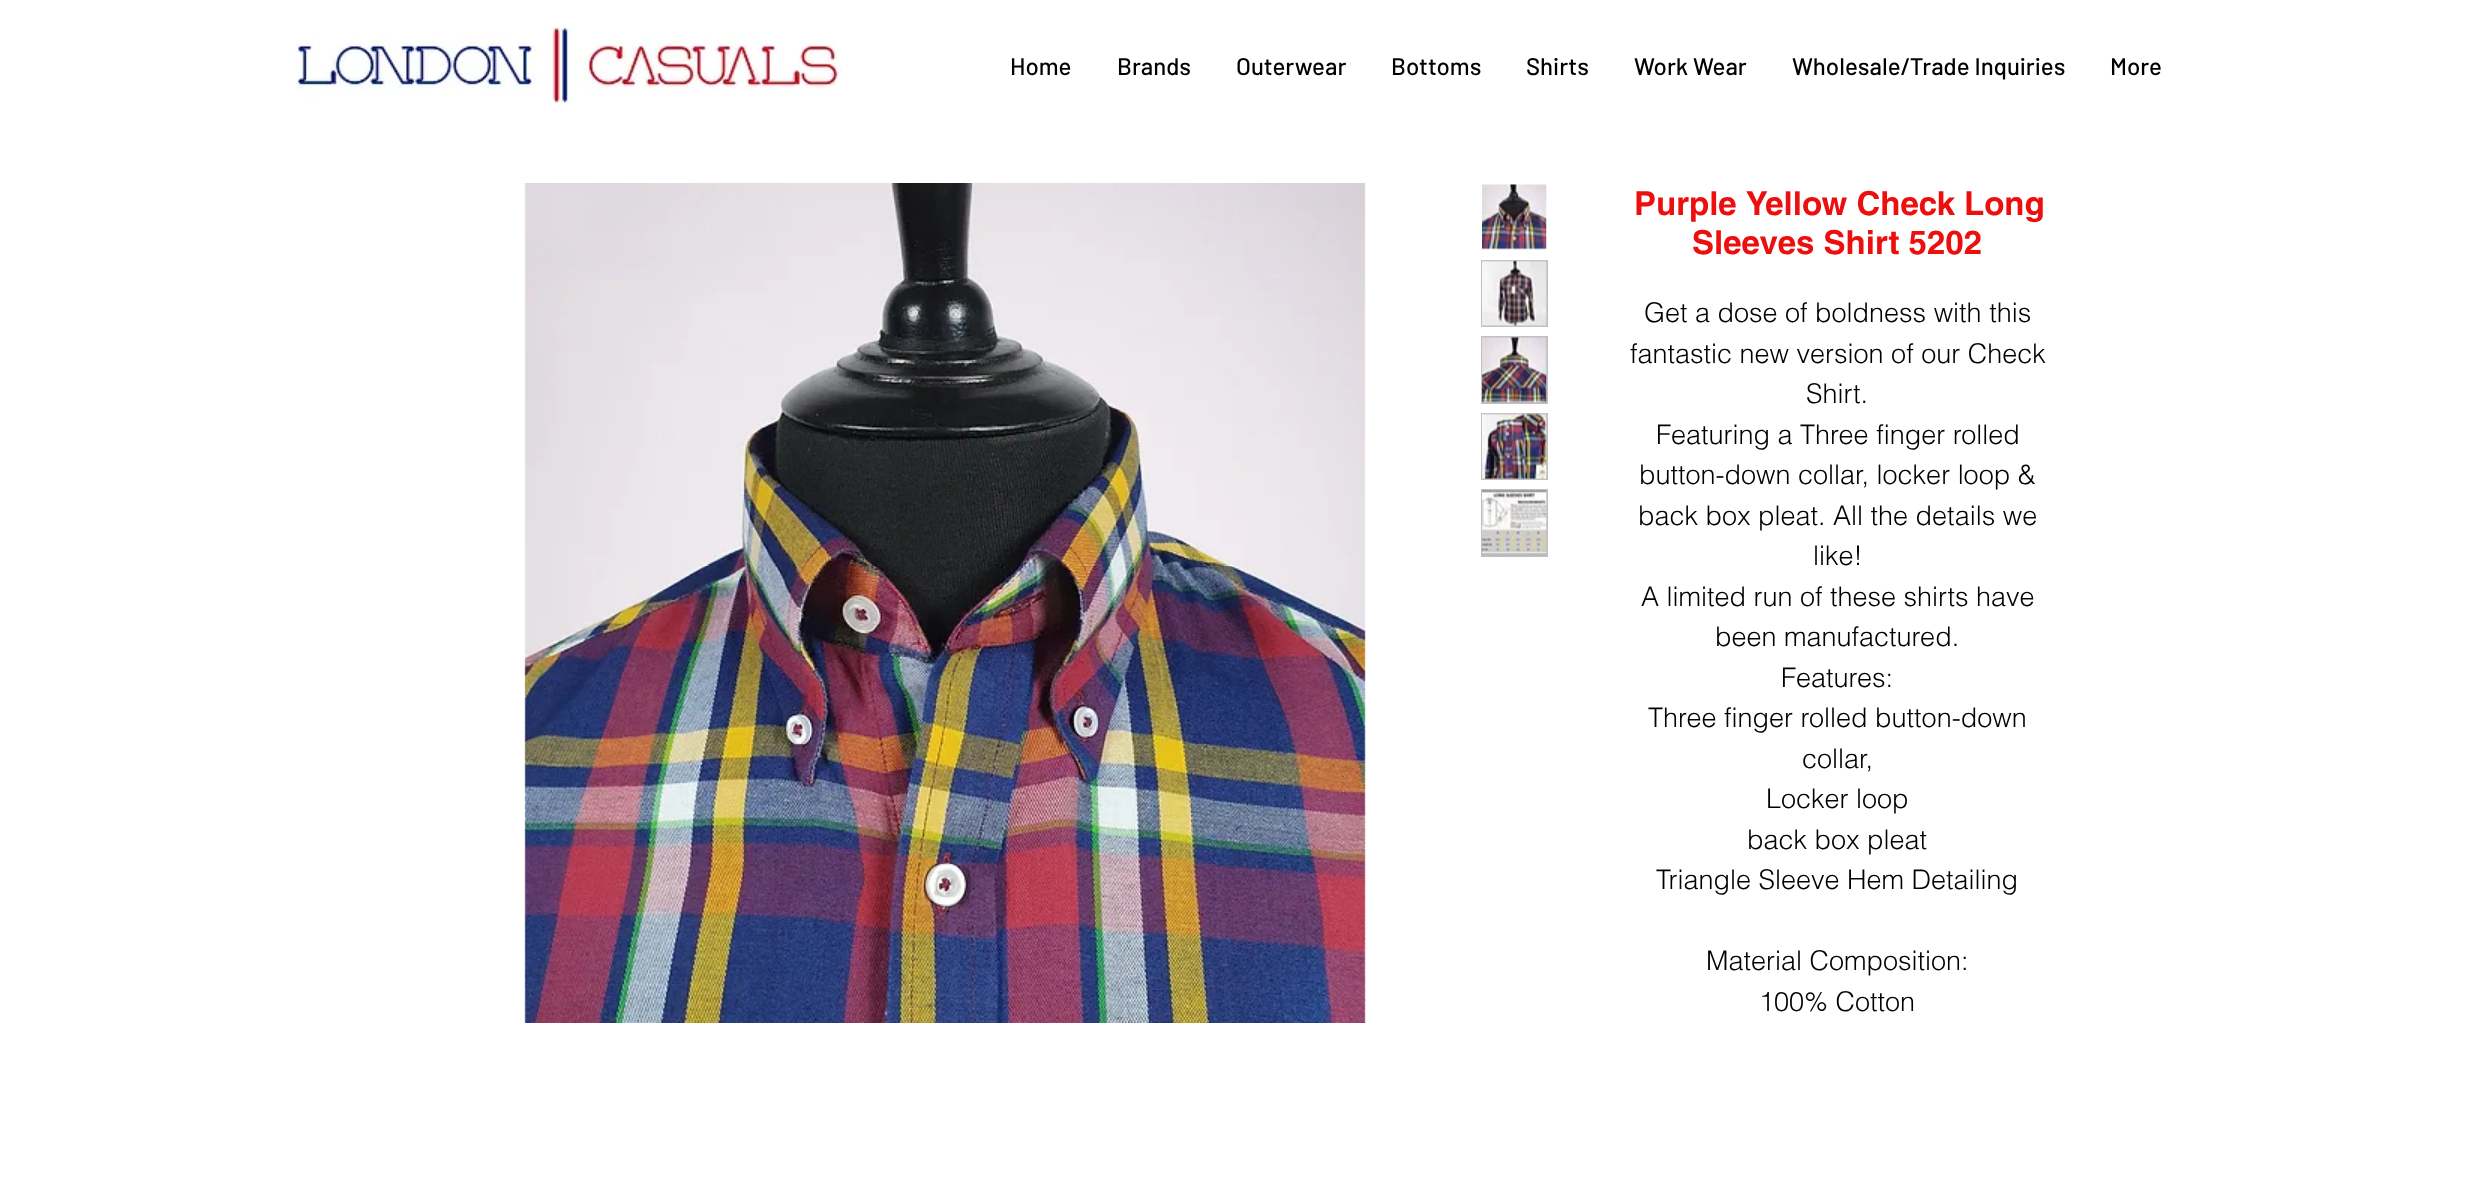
<!DOCTYPE html>
<meta charset="utf-8">
<style>body { margin: 0 } canvas { display: block }</style>
<canvas id="canvas" width="2474" height="1197"></canvas>
<img id="img1" src="img_01.png" hidden>
<img id="img2" src="img_02.png" hidden>
<img id="img3" src="img_03.png" hidden>
<img id="img4" src="img_04.png" hidden>
<img id="img5" src="img_05.png" hidden>
<img id="img6" src="img_06.png" hidden>
<img id="img7" src="img_07.png" hidden>
<script>
window.onload = function () {
	const canvas = document.getElementById("canvas");
	const ctx = canvas.getContext("2d");
	ctx.miterLimit = 4;
	ctx.fontKerning = "normal";
	function txt(s, x, y) {
		ctx.fillText(s, x, y);
	}
	function fill(x, y, w, h) {
		ctx.fillRect(x, y, w, h);
	}
	function img(id, x, y, w, h) {
		ctx.drawImage(document.getElementById(id), x, y, w, h);
	}

	ctx.fillStyle = "#FFFFFF";
	fill(0, 0, 2474, 1197);
	img("img1", 295, 27, 547, 78);
	img("img2", 524, 183, 842, 840);
	img("img3", 1482, 184, 65, 66);
	ctx.strokeStyle = "#C0C0C0";
	ctx.lineWidth = 2;
	ctx.strokeRect(1482, 261, 65, 65);
	img("img4", 1482, 260, 65, 66);
	ctx.strokeRect(1482, 337, 65, 66);
	img("img5", 1482, 337, 65, 66);
	ctx.strokeRect(1482, 414, 65, 65);
	img("img6", 1482, 413, 65, 66);
	ctx.strokeRect(1482, 490, 65, 66);
	img("img7", 1482, 490, 65, 66);
	ctx.font = "500 24px Barlow";
	ctx.fillStyle = "#000000";
	txt("Home", 1010, 75);
	txt("Brands", 1117, 75);
	txt("Outerwear", 1236, 75);
	txt("Bottoms", 1391, 75);
	txt("Shirts", 1526, 75);
	txt("Work Wear", 1634, 75);
	txt("Wholesale/Trade Inquiries", 1792, 75);
	txt("More", 2110, 75);
	ctx.font = "bold 33px helvetica";
	ctx.fillStyle = "#ED0E0E";
	txt("Purple Yellow Check Long", 1634, 215);
	txt("Sleeves Shirt 5202", 1692, 254);
	ctx.font = "300 27px helvetica";
	ctx.fillStyle = "#000000";
	txt("Get a dose of boldness with this", 1644, 322);
	txt("fantastic new version of our Check", 1630, 363);
	txt("Shirt.", 1806, 403);
	txt("Featuring a Three finger rolled", 1656, 444);
	txt("button-down collar, locker loop &", 1639, 484);
	txt("back box pleat. All the details we", 1638, 525);
	txt("like!", 1813, 565);
	txt("A limited run of these shirts have", 1641, 606);
	txt("been manufactured.", 1715, 646);
	txt("Features:", 1781, 687);
	txt("Three finger rolled button-down", 1648, 727);
	txt("collar,", 1802, 768);
	txt("Locker loop", 1766, 808);
	txt("back box pleat", 1747, 849);
	txt("Triangle Sleeve Hem Detailing", 1656, 889);
	txt("Material Composition:", 1706, 970);
	txt("100% Cotton", 1759, 1011);
};
</script>
